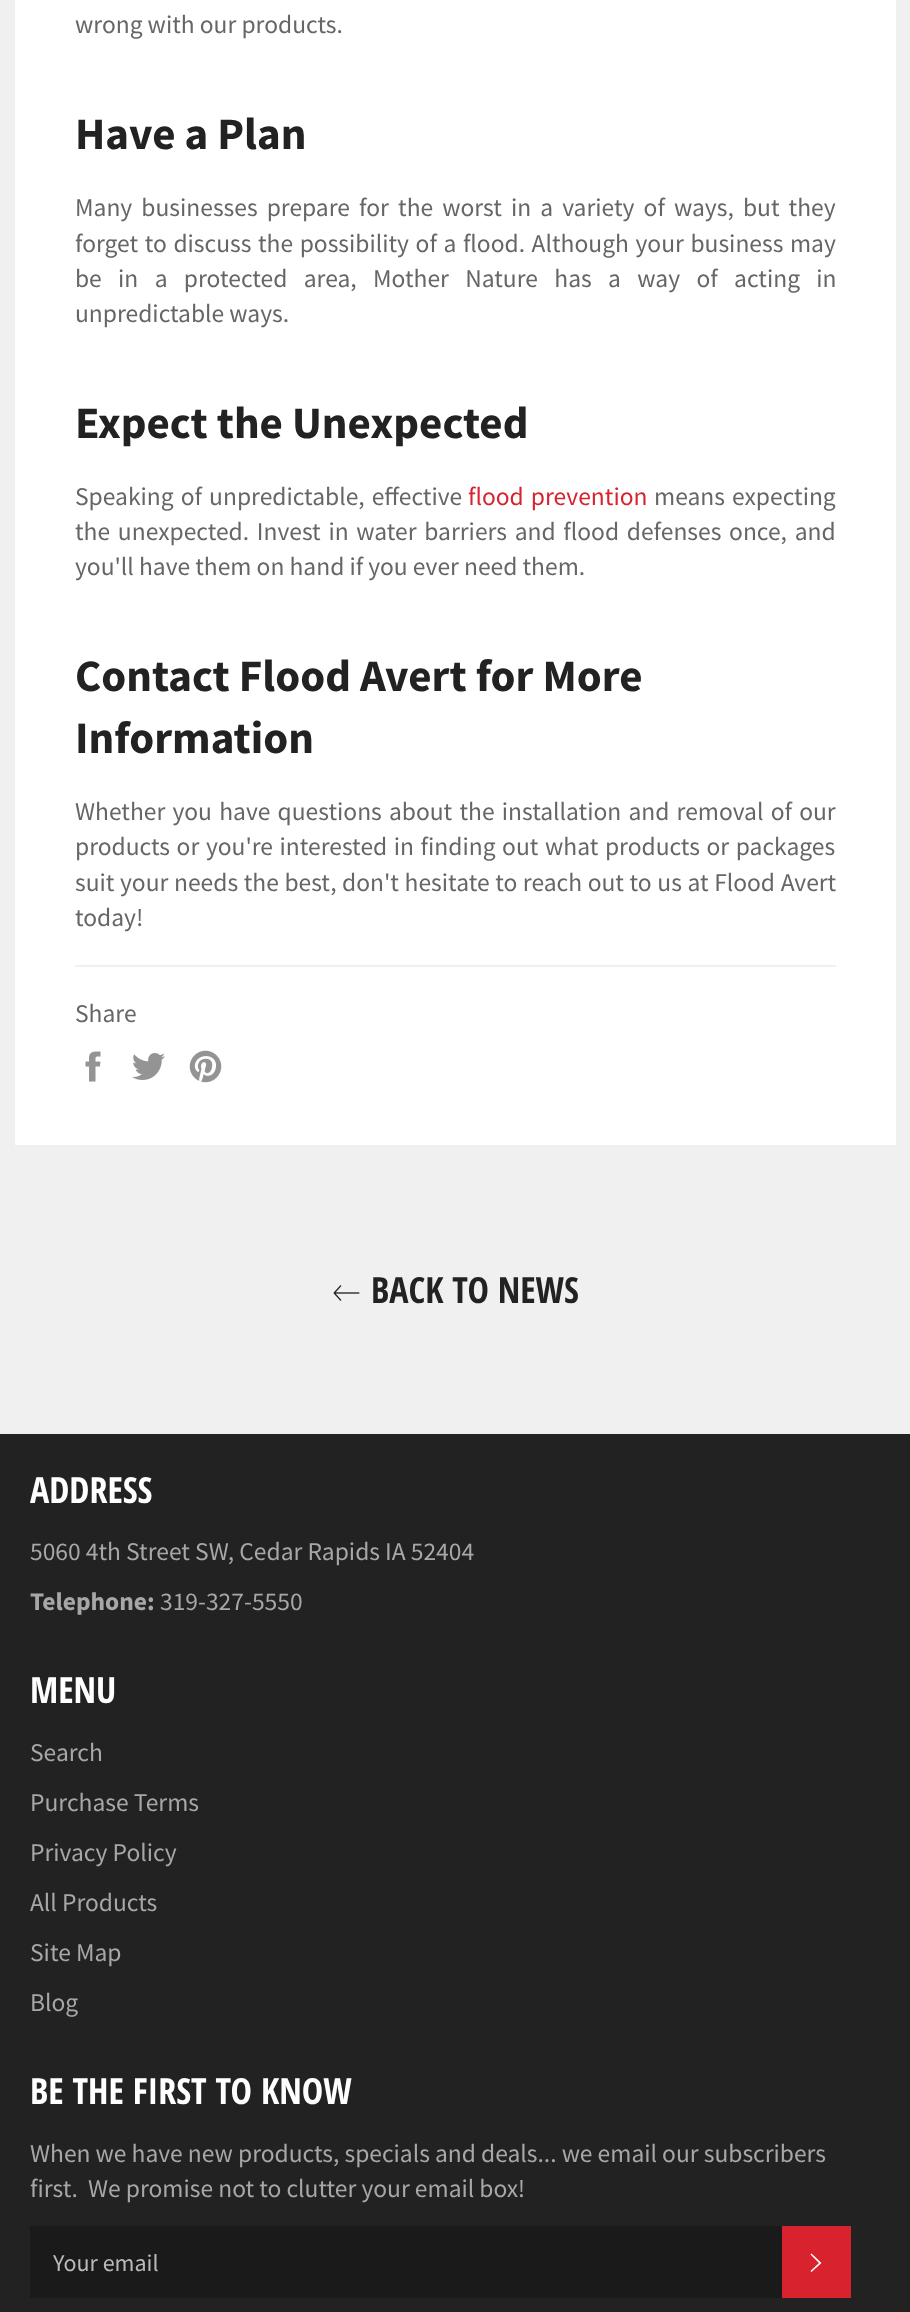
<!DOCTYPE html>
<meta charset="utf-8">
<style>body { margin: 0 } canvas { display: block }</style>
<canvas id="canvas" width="910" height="2312"></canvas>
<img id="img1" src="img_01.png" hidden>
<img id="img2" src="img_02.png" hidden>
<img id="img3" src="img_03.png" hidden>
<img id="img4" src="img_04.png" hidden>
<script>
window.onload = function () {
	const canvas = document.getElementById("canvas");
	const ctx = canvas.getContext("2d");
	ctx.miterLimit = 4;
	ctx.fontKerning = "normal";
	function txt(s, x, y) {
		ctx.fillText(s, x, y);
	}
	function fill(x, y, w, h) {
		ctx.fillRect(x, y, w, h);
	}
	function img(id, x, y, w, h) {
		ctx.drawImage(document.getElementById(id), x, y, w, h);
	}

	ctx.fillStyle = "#F0F0F0";
	fill(0, 0, 910, 2312);
	ctx.fillStyle = "#FFFFFF";
	fill(15, 0, 881, 1145);
	ctx.fillStyle = "#F0F0F0";
	fill(75, 965, 761, 2);
	img("img1", 85, 1051, 16, 31);
	img("img2", 132, 1053, 33, 27);
	img("img3", 189, 1050, 33, 33);
	img("img4", 333, 1285, 27, 16);
	ctx.fillStyle = "#222222";
	fill(0, 1434, 910, 878);
	ctx.fillStyle = "#1A1A1A";
	fill(30, 2226, 752, 72);
	ctx.fillStyle = "#D8232F";
	fill(782, 2226, 69, 72);
	ctx.fillStyle = "#FFFFFF";
	ctx.beginPath();
	ctx.moveTo(810.5, 2254.5);
	ctx.lineTo(811.5, 2253.5);
	ctx.lineTo(821.5, 2263);
	ctx.lineTo(811.5, 2272);
	ctx.lineTo(810.5, 2271);
	ctx.lineTo(819, 2263);
	ctx.closePath();
	ctx.fill();
	ctx.font = "25.5px Source Sans Pro";
	ctx.fillStyle = "#666666";
	txt("wrong with our products.", 75, 33);
	ctx.font = "bold 45px Source Sans Pro";
	ctx.fillStyle = "#222222";
	txt("Have a Plan", 75, 149);
	ctx.wordSpacing = "4px";
	ctx.font = "25.5px Source Sans Pro";
	ctx.fillStyle = "#666666";
	txt("Many businesses prepare for the worst in a variety of ways, but they", 75, 216);
	ctx.wordSpacing = "1.5px";
	txt("forget to discuss the possibility of a flood. Although your business may", 75, 252);
	ctx.wordSpacing = "11.25px";
	txt("be in a protected area, Mother Nature has a way of acting in", 75, 287);
	ctx.wordSpacing = "0px";
	txt("unpredictable ways.", 75, 322);
	ctx.font = "bold 45px Source Sans Pro";
	ctx.fillStyle = "#222222";
	txt("Expect the Unexpected", 75, 438);
	ctx.wordSpacing = "2px";
	ctx.font = "25.5px Source Sans Pro";
	ctx.fillStyle = "#666666";
	txt("Speaking of unpredictable, effective", 75, 505);
	ctx.fillStyle = "#D8232F";
	txt("flood prevention", 468, 505);
	ctx.fillStyle = "#666666";
	txt("means expecting", 654, 505);
	ctx.wordSpacing = "2.6px";
	txt("the unexpected. Invest in water barriers and flood defenses once, and", 75, 540);
	ctx.wordSpacing = "0px";
	txt("you'll have them on hand if you ever need them.", 75, 575);
	ctx.font = "bold 45px Source Sans Pro";
	ctx.fillStyle = "#222222";
	txt("Contact Flood Avert for More", 75, 691);
	txt("Information", 75, 753);
	ctx.wordSpacing = "2.1px";
	ctx.font = "25.5px Source Sans Pro";
	ctx.fillStyle = "#666666";
	txt("Whether you have questions about the installation and removal of our", 75, 820);
	ctx.wordSpacing = "1.5px";
	txt("products or you're interested in finding out what products or packages", 75, 855);
	ctx.wordSpacing = "0.5px";
	txt("suit your needs the best, don't hesitate to reach out to us at Flood Avert", 75, 891);
	ctx.wordSpacing = "0px";
	txt("today!", 75, 926);
	txt("Share", 75, 1022);
	ctx.font = "bold 36px Open Sans Condensed";
	ctx.fillStyle = "#222222";
	txt("BACK TO NEWS", 371, 1303);
	ctx.fillStyle = "#FFFFFF";
	txt("ADDRESS", 30, 1503);
	ctx.font = "25.5px Source Sans Pro";
	ctx.fillStyle = "#A7A7A7";
	txt("5060 4th Street SW, Cedar Rapids IA 52404", 30, 1560);
	ctx.font = "bold 25.5px Source Sans Pro";
	txt("Telephone:", 30, 1610);
	ctx.font = "25.5px Source Sans Pro";
	txt("319-327-5550", 160, 1610);
	ctx.font = "bold 36px Open Sans Condensed";
	ctx.fillStyle = "#FFFFFF";
	txt("MENU", 30, 1703);
	ctx.font = "25.5px Source Sans Pro";
	ctx.fillStyle = "#A7A7A7";
	txt("Search", 30, 1761);
	txt("Purchase Terms", 30, 1811);
	txt("Privacy Policy", 30, 1861);
	txt("All Products", 30, 1911);
	txt("Site Map", 30, 1961);
	txt("Blog", 30, 2011);
	ctx.font = "bold 36px Open Sans Condensed";
	ctx.fillStyle = "#FFFFFF";
	txt("BE THE FIRST TO KNOW", 30, 2104);
	ctx.font = "25.5px Source Sans Pro";
	ctx.fillStyle = "#A7A7A7";
	txt("When we have new products, specials and deals... we email our subscribers", 30, 2162);
	txt("first.  We promise not to clutter your email box!", 30, 2197);
	ctx.font = "24px Source Sans Pro";
	ctx.fillStyle = "#BABABA";
	txt("Your email", 53, 2271);
};
</script>
